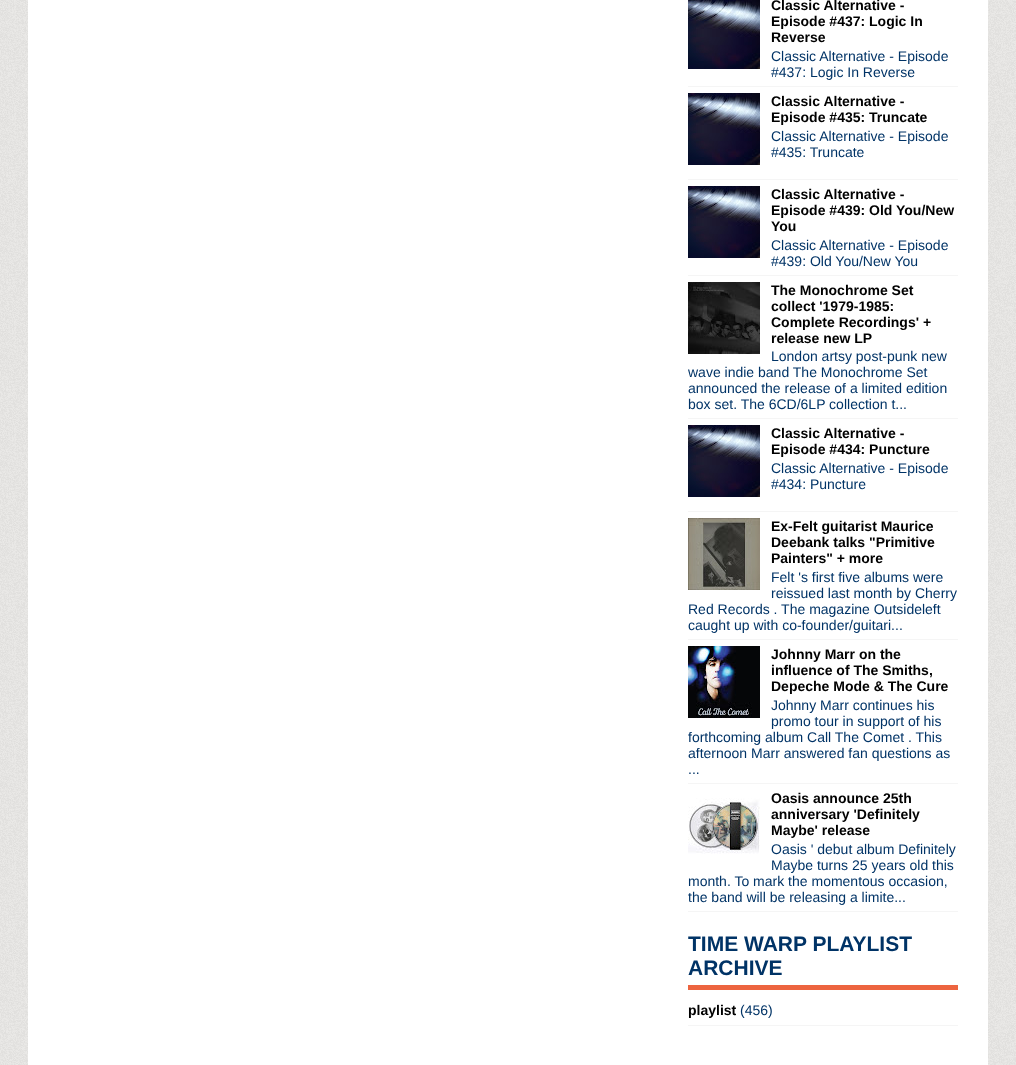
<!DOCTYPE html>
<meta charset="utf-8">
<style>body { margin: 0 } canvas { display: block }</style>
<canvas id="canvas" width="1016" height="1065"></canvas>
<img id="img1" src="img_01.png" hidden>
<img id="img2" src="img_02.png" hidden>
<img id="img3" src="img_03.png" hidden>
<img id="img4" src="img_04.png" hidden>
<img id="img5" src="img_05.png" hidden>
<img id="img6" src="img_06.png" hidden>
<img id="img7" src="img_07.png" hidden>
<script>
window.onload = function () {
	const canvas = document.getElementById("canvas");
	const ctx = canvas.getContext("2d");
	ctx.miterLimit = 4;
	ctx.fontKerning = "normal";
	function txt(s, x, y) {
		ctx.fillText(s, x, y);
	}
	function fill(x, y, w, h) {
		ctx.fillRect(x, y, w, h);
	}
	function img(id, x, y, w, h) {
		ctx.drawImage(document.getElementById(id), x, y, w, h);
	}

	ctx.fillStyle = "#FFFFFF";
	fill(0, 0, 1016, 1065);
	img("img1", 0, 0, 1016, 1065);
	fill(28, 0, 960, 1065);
	ctx.fillStyle = "#F5F5F5";
	fill(688, 86, 270, 1);
	img("img2", 688, 0, 72, 69);
	fill(688, 179, 270, 1);
	img("img3", 688, 93, 72, 72);
	fill(688, 275, 270, 1);
	img("img3", 688, 186, 72, 72);
	fill(688, 418, 270, 1);
	img("img4", 688, 282, 72, 72);
	fill(688, 511, 270, 1);
	img("img3", 688, 425, 72, 72);
	fill(688, 639, 270, 1);
	img("img5", 688, 518, 72, 72);
	fill(688, 783, 270, 1);
	img("img6", 688, 646, 72, 72);
	fill(688, 911, 270, 1);
	img("img7", 688, 798, 72, 56);
	ctx.fillStyle = "#ED643F";
	fill(688, 985, 270, 5);
	ctx.fillStyle = "#F5F5F5";
	fill(688, 1025, 270, 1);
	ctx.font = "bold 14px Liberation Sans";
	ctx.fillStyle = "#000000";
	txt("Classic Alternative -", 771, 10);
	txt("Episode #437: Logic In", 771, 26);
	txt("Reverse", 771, 42);
	ctx.font = "14px Liberation Sans";
	ctx.fillStyle = "#003366";
	txt("Classic Alternative - Episode", 771, 61);
	txt("#437: Logic In Reverse", 771, 77);
	ctx.font = "bold 14px Liberation Sans";
	ctx.fillStyle = "#000000";
	txt("Classic Alternative -", 771, 106);
	txt("Episode #435: Truncate", 771, 122);
	ctx.font = "14px Liberation Sans";
	ctx.fillStyle = "#003366";
	txt("Classic Alternative - Episode", 771, 141);
	txt("#435: Truncate", 771, 157);
	ctx.font = "bold 14px Liberation Sans";
	ctx.fillStyle = "#000000";
	txt("Classic Alternative -", 771, 199);
	txt("Episode #439: Old You/New", 771, 215);
	txt("You", 771, 231);
	ctx.font = "14px Liberation Sans";
	ctx.fillStyle = "#003366";
	txt("Classic Alternative - Episode", 771, 250);
	txt("#439: Old You/New You", 771, 266);
	ctx.font = "bold 14px Liberation Sans";
	ctx.fillStyle = "#000000";
	txt("The Monochrome Set", 771, 295);
	txt("collect '1979-1985:", 771, 311);
	txt("Complete Recordings' +", 771, 327);
	txt("release new LP", 771, 343);
	ctx.font = "14px Liberation Sans";
	ctx.fillStyle = "#003366";
	txt("London artsy post-punk new", 771, 361);
	txt("wave indie band The Monochrome Set", 688, 377);
	txt("announced the release of a limited edition", 688, 393);
	txt("box set. The 6CD/6LP collection t...", 688, 409);
	ctx.font = "bold 14px Liberation Sans";
	ctx.fillStyle = "#000000";
	txt("Classic Alternative -", 771, 438);
	txt("Episode #434: Puncture", 771, 454);
	ctx.font = "14px Liberation Sans";
	ctx.fillStyle = "#003366";
	txt("Classic Alternative - Episode", 771, 473);
	txt("#434: Puncture", 771, 489);
	ctx.font = "bold 14px Liberation Sans";
	ctx.fillStyle = "#000000";
	txt("Ex-Felt guitarist Maurice", 771, 531);
	txt("Deebank talks \"Primitive", 771, 547);
	txt("Painters\" + more", 771, 563);
	ctx.font = "14px Liberation Sans";
	ctx.fillStyle = "#003366";
	txt("Felt 's first five albums were", 771, 582);
	txt("reissued last month by Cherry", 771, 598);
	txt("Red Records . The magazine Outsideleft", 688, 614);
	txt("caught up with co-founder/guitari...", 688, 630);
	ctx.font = "bold 14px Liberation Sans";
	ctx.fillStyle = "#000000";
	txt("Johnny Marr on the", 771, 659);
	txt("influence of The Smiths,", 771, 675);
	txt("Depeche Mode & The Cure", 771, 691);
	ctx.font = "14px Liberation Sans";
	ctx.fillStyle = "#003366";
	txt("Johnny Marr continues his", 771, 710);
	txt("promo tour in support of his", 771, 726);
	txt("forthcoming album Call The Comet . This", 688, 742);
	txt("afternoon Marr answered fan questions as", 688, 758);
	txt("...", 688, 774);
	ctx.font = "bold 14px Liberation Sans";
	ctx.fillStyle = "#000000";
	txt("Oasis announce 25th", 771, 803);
	txt("anniversary 'Definitely", 771, 819);
	txt("Maybe' release", 771, 835);
	ctx.font = "14px Liberation Sans";
	ctx.fillStyle = "#003366";
	txt("Oasis ' debut album Definitely", 771, 854);
	txt("Maybe turns 25 years old this", 771, 870);
	txt("month. To mark the momentous occasion,", 688, 886);
	txt("the band will be releasing a limite...", 688, 902);
	ctx.font = "bold 21px Liberation Sans";
	txt("TIME WARP PLAYLIST", 688, 951);
	txt("ARCHIVE", 688, 975);
	ctx.font = "bold 14px Liberation Sans";
	ctx.fillStyle = "#000000";
	txt("playlist", 688, 1015);
	ctx.font = "14px Liberation Sans";
	ctx.fillStyle = "#003366";
	txt("(456)", 740, 1015);
};
</script>
